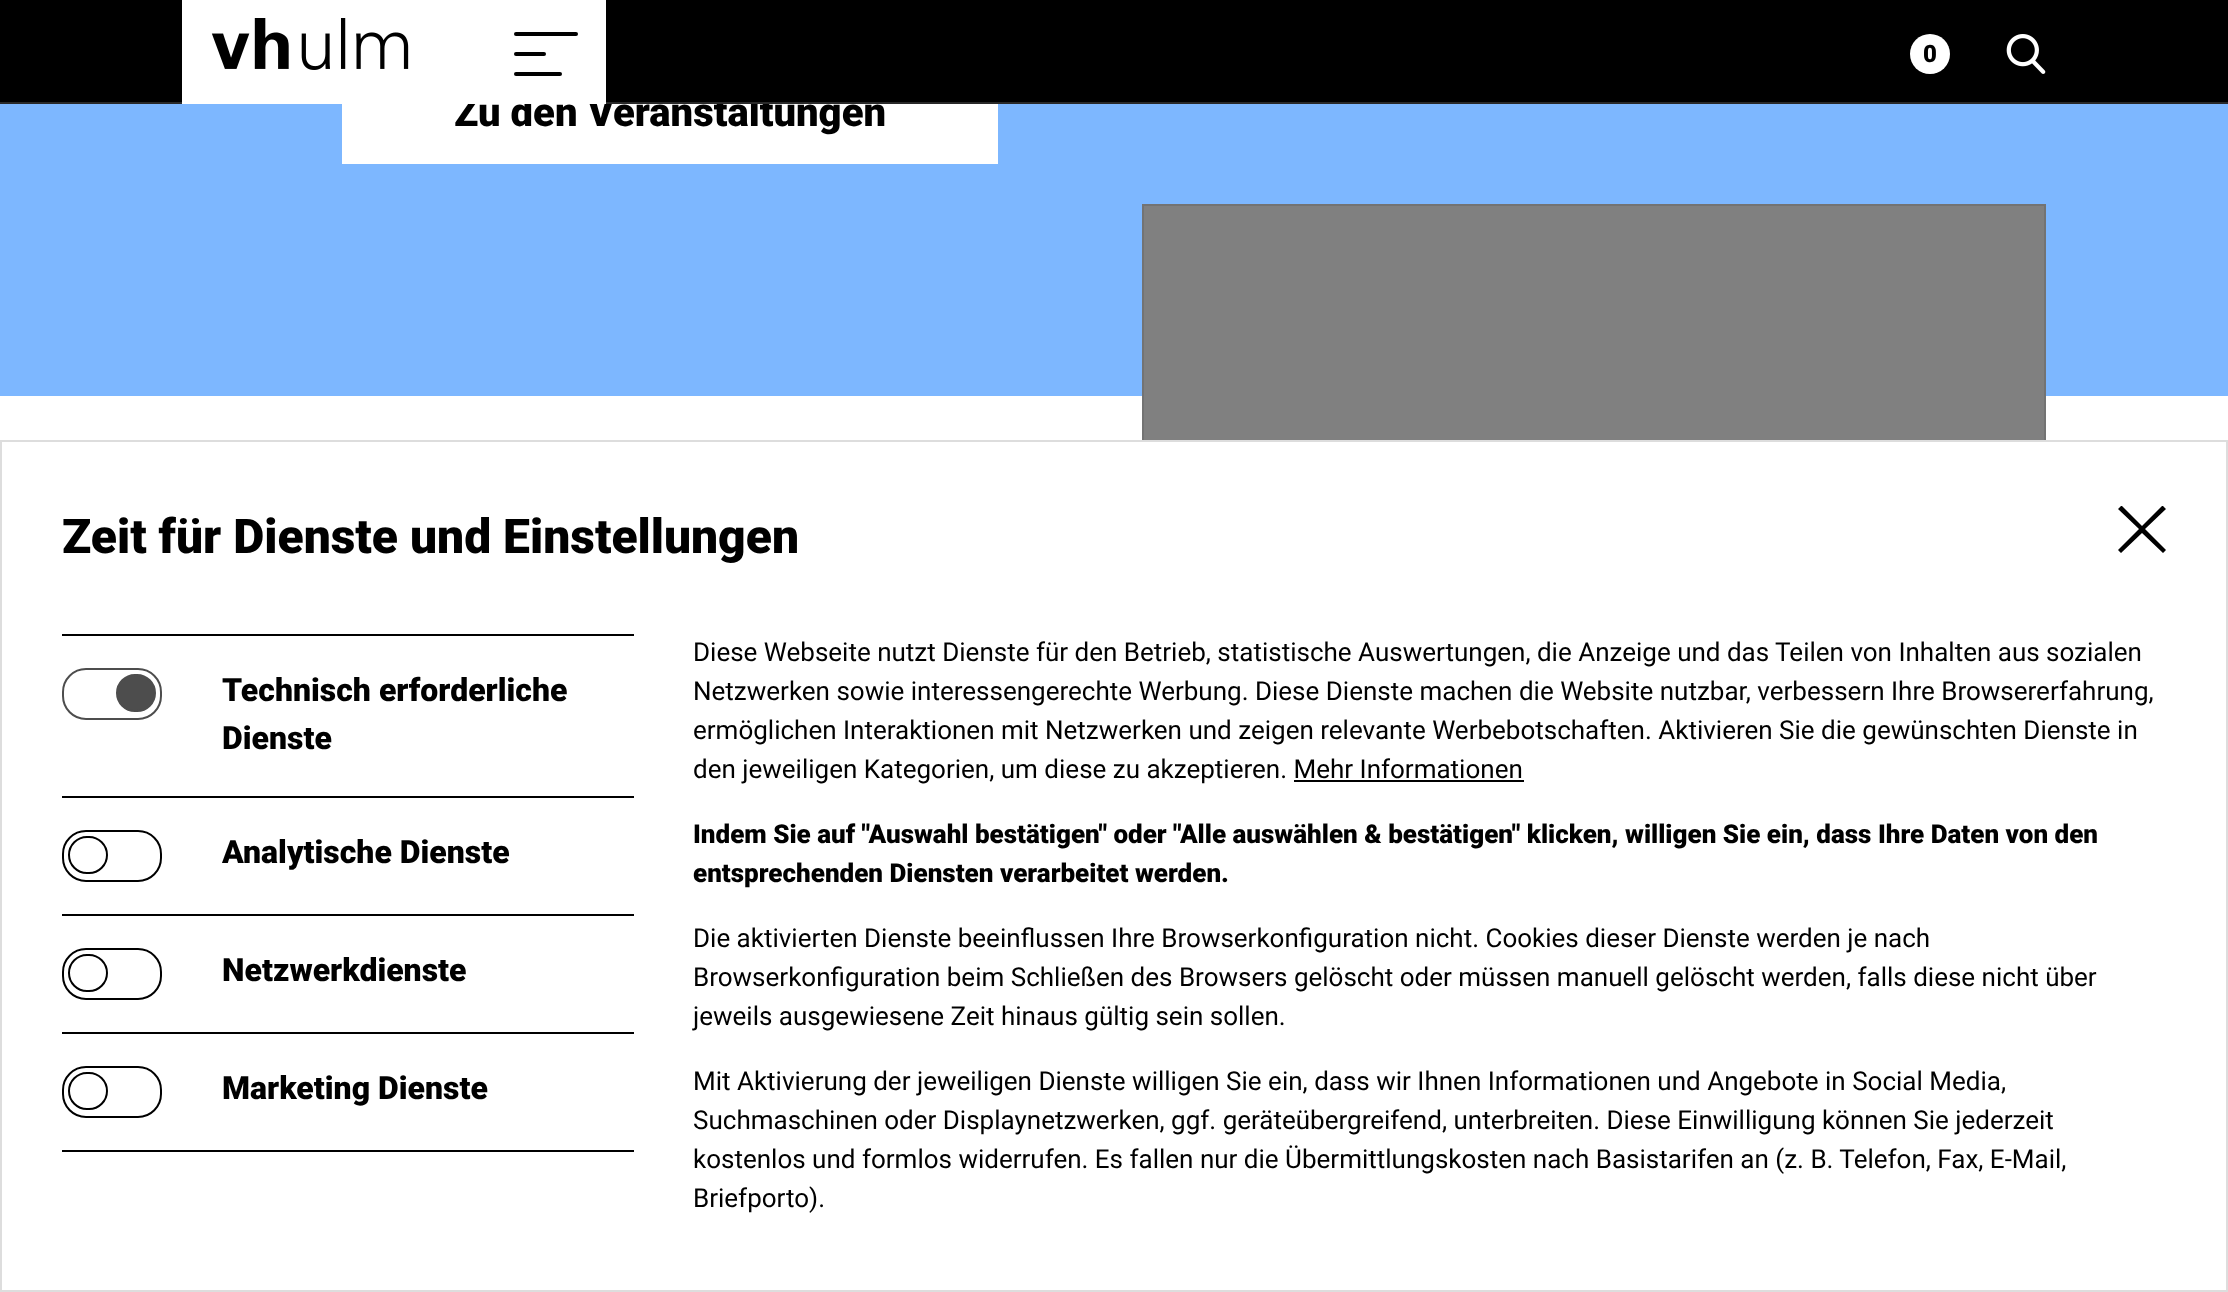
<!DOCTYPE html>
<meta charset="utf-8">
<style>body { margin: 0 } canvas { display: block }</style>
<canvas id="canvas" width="2228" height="1292"></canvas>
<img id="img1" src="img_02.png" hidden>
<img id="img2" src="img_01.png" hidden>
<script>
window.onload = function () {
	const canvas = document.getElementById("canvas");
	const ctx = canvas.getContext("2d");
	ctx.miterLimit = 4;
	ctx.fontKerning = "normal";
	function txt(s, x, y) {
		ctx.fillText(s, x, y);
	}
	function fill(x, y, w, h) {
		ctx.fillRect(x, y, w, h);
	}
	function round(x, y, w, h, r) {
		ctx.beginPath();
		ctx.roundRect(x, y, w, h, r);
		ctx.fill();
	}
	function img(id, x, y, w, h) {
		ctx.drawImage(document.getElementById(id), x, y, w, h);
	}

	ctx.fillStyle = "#FFFFFF";
	fill(0, 0, 2228, 1292);
	ctx.fillStyle = "#000000";
	fill(0, 0, 2228, 102);
	ctx.fillStyle = "#FFFFFF";
	ctx.beginPath();
	ctx.arc(1930, 54, 20, 0, Math.PI * 2);
	ctx.fill();
	img("img1", 2006, 34, 40, 40);
	ctx.fillStyle = "#7DB7FF";
	fill(0, 104, 2228, 292);
	ctx.fillStyle = "#FFFFFF";
	fill(342, 104, 656, 60);
	ctx.fillStyle = "#808080";
	fill(1144, 206, 900, 234);
	ctx.strokeStyle = "#737373";
	ctx.lineWidth = 2;
	ctx.strokeRect(1143, 205, 902, 510);
	ctx.fillStyle = "#FFFFFF";
	fill(1142, 442, 904, 274);
	ctx.strokeStyle = "#DDDDDD";
	ctx.strokeRect(1, 441, 2226, 850);
	ctx.fillStyle = "#000000";
	ctx.beginPath();
	ctx.moveTo(2166, 509);
	ctx.lineTo(2145, 529);
	ctx.lineTo(2166, 550);
	ctx.lineTo(2163, 553);
	ctx.lineTo(2142, 533);
	ctx.lineTo(2121, 553);
	ctx.lineTo(2118, 550);
	ctx.lineTo(2139, 529);
	ctx.lineTo(2118, 509);
	ctx.lineTo(2121, 506);
	ctx.lineTo(2122, 506);
	ctx.lineTo(2142, 526);
	ctx.lineTo(2162, 506);
	ctx.lineTo(2163, 506);
	ctx.closePath();
	ctx.fill();
	fill(62, 634, 572, 2);
	ctx.beginPath();
	ctx.roundRect(63, 669, 98, 50, 23);
	ctx.strokeStyle = "#4D4D4D";
	ctx.stroke();
	ctx.fillStyle = "#4D4D4D";
	ctx.beginPath();
	ctx.roundRect(117, 675, 38, 36, 18);
	ctx.fill();
	ctx.stroke();
	ctx.fillStyle = "#000000";
	fill(62, 796, 572, 2);
	ctx.beginPath();
	ctx.roundRect(63, 831, 98, 50, 23);
	ctx.strokeStyle = "#000000";
	ctx.stroke();
	ctx.beginPath();
	ctx.roundRect(69, 837, 38, 36, 18);
	ctx.stroke();
	fill(62, 914, 572, 2);
	ctx.beginPath();
	ctx.roundRect(63, 949, 98, 50, 23);
	ctx.stroke();
	ctx.beginPath();
	ctx.roundRect(69, 955, 38, 36, 18);
	ctx.stroke();
	fill(62, 1032, 572, 2);
	fill(62, 1150, 572, 2);
	ctx.beginPath();
	ctx.roundRect(63, 1067, 98, 50, 23);
	ctx.stroke();
	ctx.beginPath();
	ctx.roundRect(69, 1073, 38, 36, 18);
	ctx.stroke();
	fill(1294, 780, 230, 2);
	ctx.font = "900 24px Roboto";
	txt("0", 1923, 62);
	ctx.font = "900 40px Roboto";
	txt("Zu den Veranstaltungen", 454, 126);
	ctx.fillStyle = "#292929";
	fill(0, 102, 2228, 2);
	ctx.fillStyle = "#FFFFFF";
	fill(182, 0, 424, 104);
	ctx.fillStyle = "#000000";
	round(514, 72, 48, 4, 2);
	round(514, 52, 32, 4, 2);
	round(514, 32, 64, 4, 2);
	img("img2", 211, 18, 198, 52);
	ctx.font = "900 48px Roboto";
	txt("Zeit für Dienste und Einstellungen", 62, 553);
	ctx.font = "900 32px Roboto";
	txt("Technisch erforderliche", 222, 701);
	txt("Dienste", 222, 749);
	txt("Analytische Dienste", 222, 863);
	txt("Netzwerkdienste", 222, 981);
	txt("Marketing Dienste", 222, 1099);
	ctx.font = "26px Roboto";
	txt("Diese Webseite nutzt Dienste für den Betrieb, statistische Auswertungen, die Anzeige und das Teilen von Inhalten aus sozialen", 693, 661);
	txt("Netzwerken sowie interessengerechte Werbung. Diese Dienste machen die Website nutzbar, verbessern Ihre Browsererfahrung,", 693, 700);
	txt("ermöglichen Interaktionen mit Netzwerken und zeigen relevante Werbebotschaften. Aktivieren Sie die gewünschten Dienste in", 693, 739);
	txt("den jeweiligen Kategorien, um diese zu akzeptieren. Mehr Informationen", 693, 778);
	ctx.font = "900 26px Roboto";
	txt("Indem Sie auf \"Auswahl bestätigen\" oder \"Alle auswählen & bestätigen\" klicken, willigen Sie ein, dass Ihre Daten von den", 693, 843);
	txt("entsprechenden Diensten verarbeitet werden.", 693, 882);
	ctx.font = "26px Roboto";
	txt("Die aktivierten Dienste beeinflussen Ihre Browserkonfiguration nicht. Cookies dieser Dienste werden je nach", 693, 947);
	txt("Browserkonfiguration beim Schließen des Browsers gelöscht oder müssen manuell gelöscht werden, falls diese nicht über", 693, 986);
	txt("jeweils ausgewiesene Zeit hinaus gültig sein sollen.", 693, 1025);
	txt("Mit Aktivierung der jeweiligen Dienste willigen Sie ein, dass wir Ihnen Informationen und Angebote in Social Media,", 693, 1090);
	txt("Suchmaschinen oder Displaynetzwerken, ggf. geräteübergreifend, unterbreiten. Diese Einwilligung können Sie jederzeit", 693, 1129);
	txt("kostenlos und formlos widerrufen. Es fallen nur die Übermittlungskosten nach Basistarifen an (z. B. Telefon, Fax, E-Mail,", 693, 1168);
	txt("Briefporto).", 693, 1207);
};
</script>
